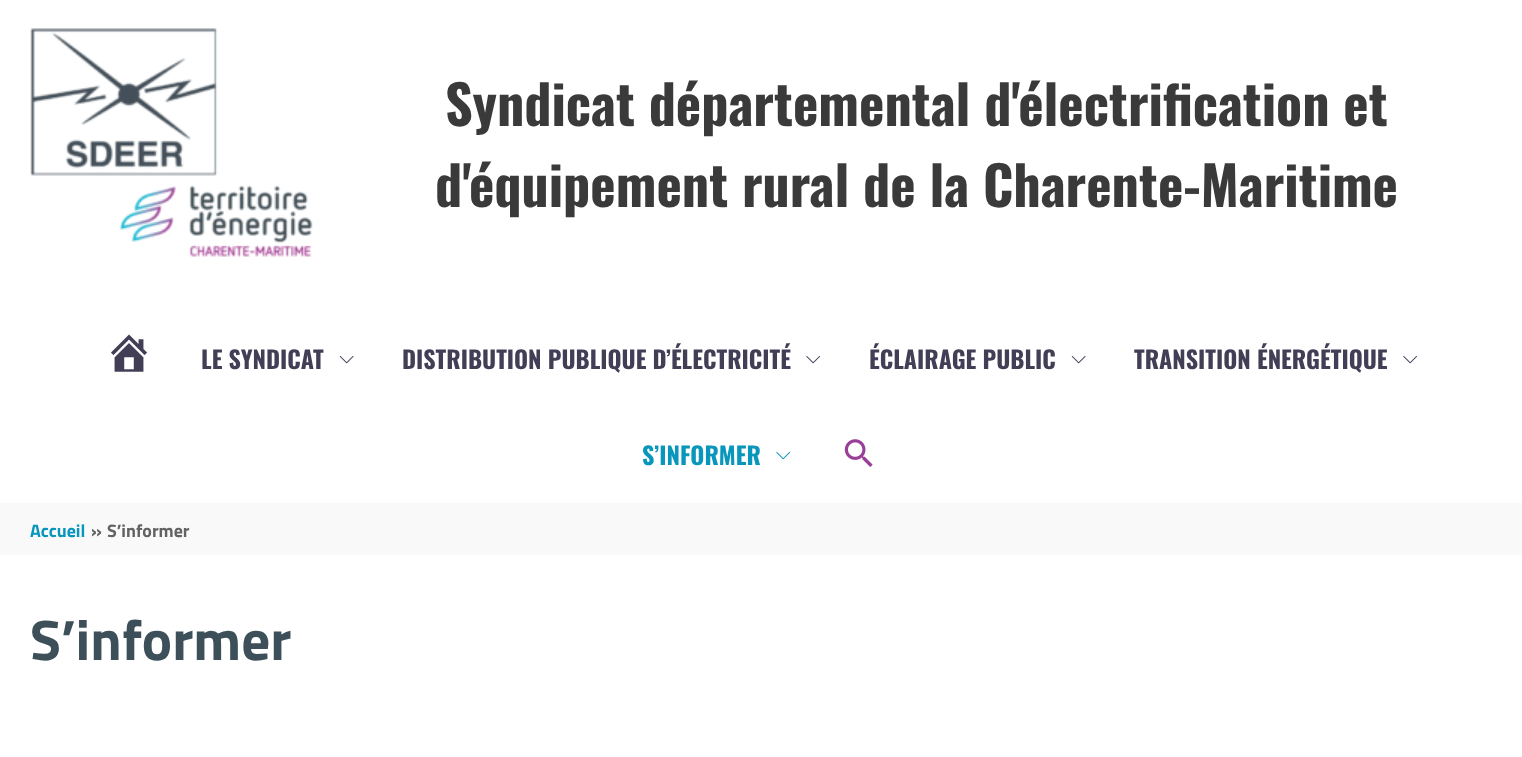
<!DOCTYPE html>
<meta charset="utf-8">
<style>body { margin: 0 } canvas { display: block }</style>
<canvas id="canvas" width="1522" height="757"></canvas>
<img id="img1" src="img_01.png" hidden>
<img id="img2" src="img_02.png" hidden>
<img id="img3" src="img_03.png" hidden>
<img id="img4" src="img_04.png" hidden>
<img id="img5" src="img_05.png" hidden>
<img id="img6" src="img_06.png" hidden>
<script>
window.onload = function () {
	const canvas = document.getElementById("canvas");
	const ctx = canvas.getContext("2d");
	ctx.miterLimit = 4;
	ctx.fontKerning = "normal";
	function txt(s, x, y) {
		ctx.fillText(s, x, y);
	}
	function fill(x, y, w, h) {
		ctx.fillRect(x, y, w, h);
	}
	function img(id, x, y, w, h) {
		ctx.drawImage(document.getElementById(id), x, y, w, h);
	}

	ctx.fillStyle = "#FFFFFF";
	fill(0, 0, 1522, 757);
	img("img1", 30, 28, 283, 229);
	img("img2", 111, 334, 36, 38);
	img("img3", 339, 356, 15, 8);
	img("img4", 806, 356, 14, 8);
	img("img3", 1071, 356, 15, 8);
	img("img4", 1403, 356, 14, 8);
	img("img5", 776, 452, 14, 8);
	img("img6", 844, 439, 29, 28);
	ctx.fillStyle = "#F9F9F9";
	fill(0, 503, 1522, 52);
	ctx.font = "bold 54px Oswald";
	ctx.fillStyle = "#3A3A3A";
	txt("Syndicat départemental d'électrification et", 445, 126);
	txt("d'équipement rural de la Charente-Maritime", 435, 207);
	ctx.font = "bold 24px Oswald";
	ctx.fillStyle = "#423E56";
	txt("LE SYNDICAT", 201, 369);
	txt("DISTRIBUTION PUBLIQUE D’ÉLECTRICITÉ", 402, 369);
	txt("ÉCLAIRAGE PUBLIC", 869, 369);
	txt("TRANSITION ÉNERGÉTIQUE", 1134, 369);
	ctx.fillStyle = "#0896BC";
	txt("S’INFORMER", 642, 465);
	ctx.font = "bold 18px Titillium Web";
	txt("Accueil", 30, 537);
	ctx.fillStyle = "#636363";
	txt("»", 91, 537);
	txt("S’informer", 107, 537);
	ctx.font = "bold 57px Titillium Web";
	ctx.fillStyle = "#3D505A";
	txt("S’informer", 30, 660);
};
</script>
